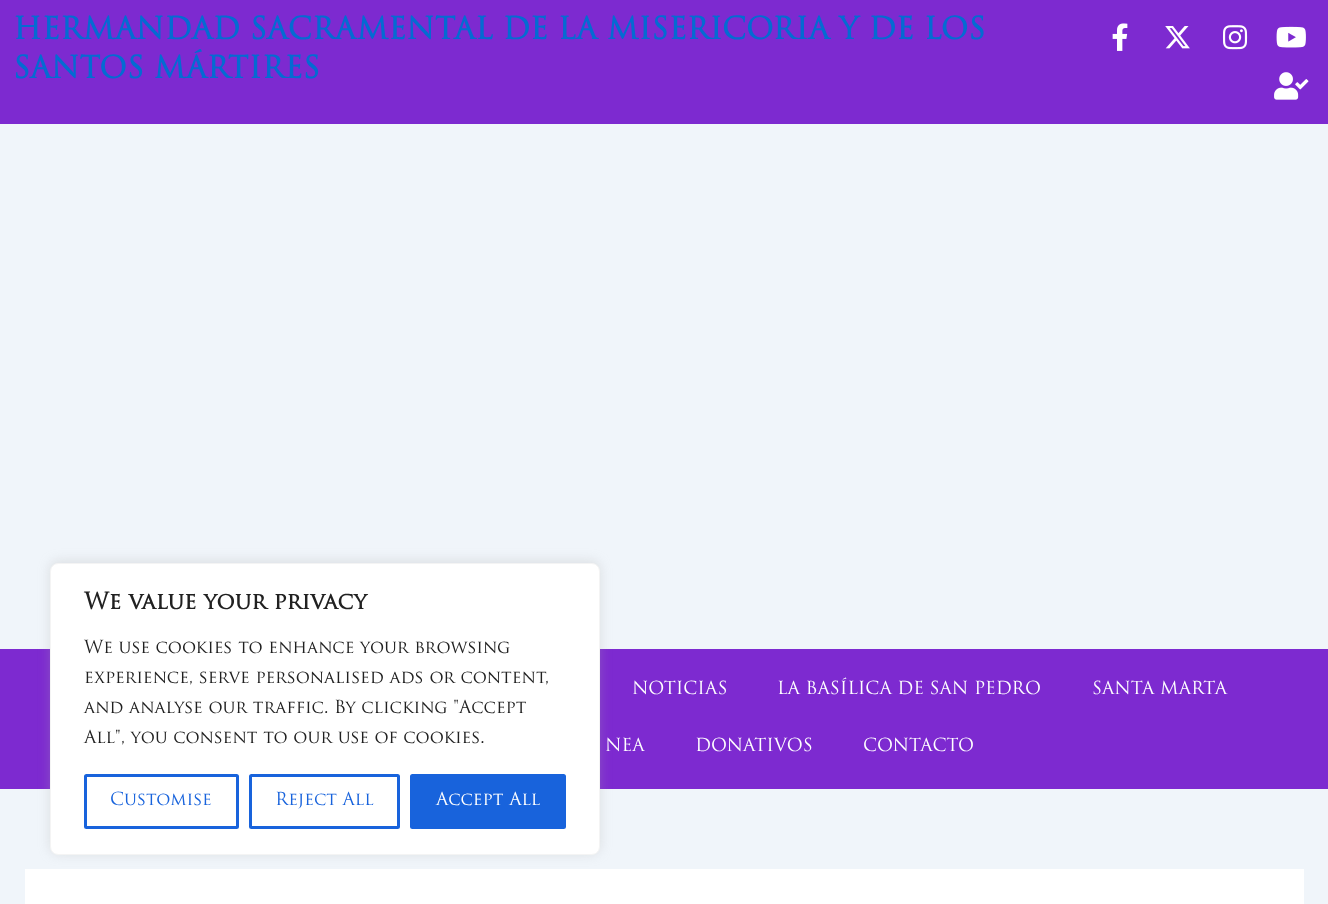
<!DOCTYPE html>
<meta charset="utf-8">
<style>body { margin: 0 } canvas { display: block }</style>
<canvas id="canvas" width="1328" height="904"></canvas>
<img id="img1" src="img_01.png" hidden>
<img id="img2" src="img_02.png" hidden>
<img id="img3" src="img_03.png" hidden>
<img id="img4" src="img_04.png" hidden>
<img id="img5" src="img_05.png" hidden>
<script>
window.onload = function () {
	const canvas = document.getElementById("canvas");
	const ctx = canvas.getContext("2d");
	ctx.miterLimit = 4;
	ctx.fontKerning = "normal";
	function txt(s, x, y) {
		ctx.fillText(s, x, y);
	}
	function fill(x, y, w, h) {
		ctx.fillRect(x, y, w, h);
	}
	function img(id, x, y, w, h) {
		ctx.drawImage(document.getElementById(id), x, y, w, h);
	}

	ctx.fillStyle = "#F0F5FA";
	fill(0, 0, 1328, 904);
	ctx.fillStyle = "#7D2AD0";
	fill(0, 0, 1328, 124);
	img("img1", 1112, 23, 16, 28);
	img("img2", 1165, 26, 25, 23);
	img("img3", 1222, 25, 26, 25);
	img("img4", 1276, 26, 30, 22);
	img("img5", 1274, 72, 35, 28);
	fill(0, 649, 1328, 140);
	ctx.fillStyle = "#FFFFFF";
	fill(25, 869, 1279, 35);
	ctx.fillStyle = "rgba(172, 171, 171, 0.3)";
	ctx.filter = "blur(6px)";
	ctx.beginPath();
	ctx.roundRect(50, 561, 550, 293, 8);
	ctx.fill();
	ctx.filter = "none";
	ctx.fillStyle = "#FFFFFF";
	ctx.beginPath();
	ctx.roundRect(50.5, 563.5, 549, 291, 7.5);
	ctx.fill();
	ctx.strokeStyle = "#F4F4F4";
	ctx.stroke();
	ctx.beginPath();
	ctx.roundRect(85.5, 775.5, 152, 52, 1);
	ctx.strokeStyle = "#1863DC";
	ctx.lineWidth = 3;
	ctx.stroke();
	ctx.beginPath();
	ctx.roundRect(250.5, 775.5, 148, 52, 1);
	ctx.stroke();
	ctx.fillStyle = "#1863DC";
	ctx.beginPath();
	ctx.roundRect(411.5, 775.5, 153, 52, 1);
	ctx.fill();
	ctx.stroke();
	ctx.font = "bold 30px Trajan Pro";
	ctx.fillStyle = "#046BD2";
	txt("HERMANDAD SACRAMENTAL DE LA MISERICORIA Y DE LOS", 13, 39);
	txt("SANTOS MÁRTIRES", 13, 78);
	ctx.font = "17.5px Trajan Pro";
	ctx.fillStyle = "#FFFFFF";
	txt("NOTICIAS", 632, 694);
	txt("LA BASÍLICA DE SAN PEDRO", 777, 694);
	txt("SANTA MARTA", 1092, 694);
	txt("NEA", 605, 751);
	txt("DONATIVOS", 695, 751);
	txt("CONTACTO", 863, 751);
	ctx.font = "bold 22.5px Trajan Pro";
	ctx.fillStyle = "#212121";
	txt("We value your privacy", 84, 609);
	ctx.font = "17.5px Trajan Pro";
	txt("We use cookies to enhance your browsing", 84, 653);
	txt("experience, serve personalised ads or content,", 84, 683);
	txt("and analyse our traffic. By clicking \"Accept", 84, 713);
	txt("All\", you consent to our use of cookies.", 84, 743);
	ctx.fillStyle = "#1863DC";
	txt("Customise", 110, 805);
	txt("Reject All", 275, 805);
	ctx.fillStyle = "#FFFFFF";
	txt("Accept All", 436, 805);
};
</script>
